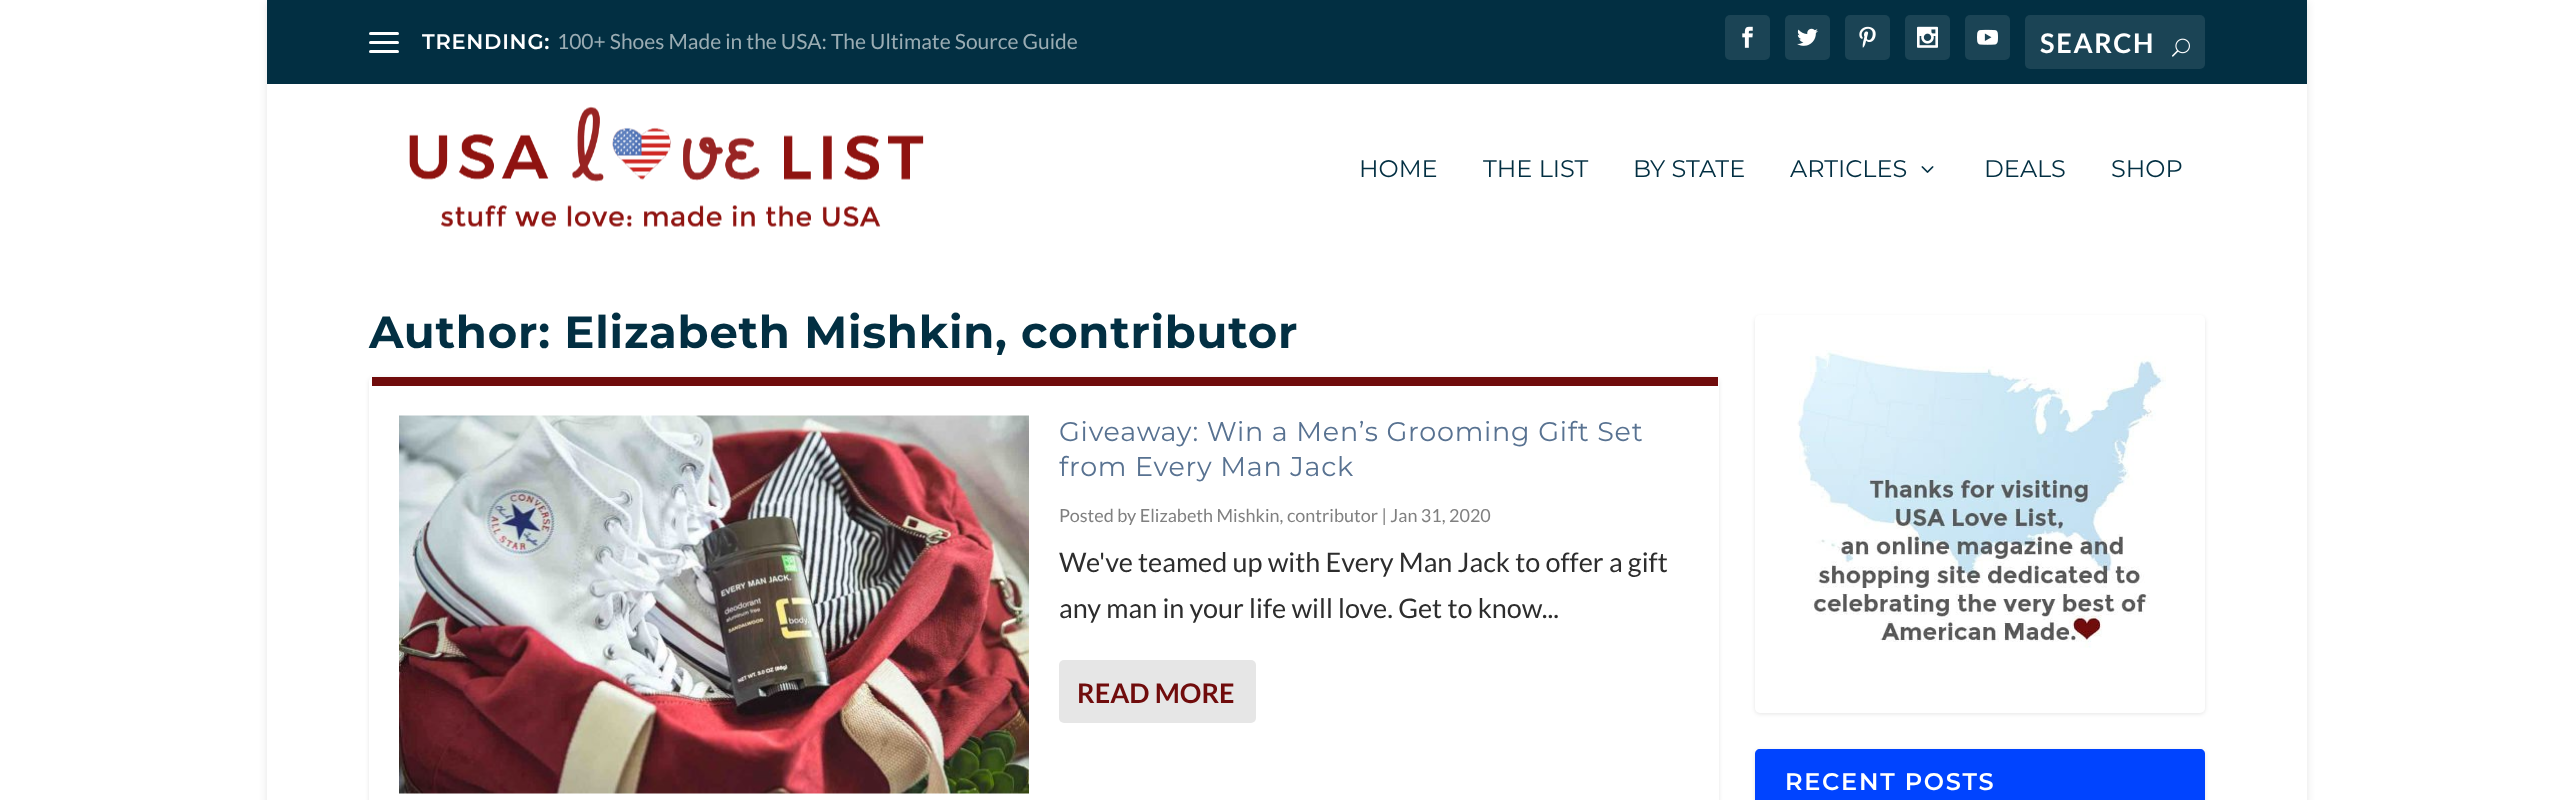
<!DOCTYPE html>
<meta charset="utf-8">
<style>body { margin: 0 } canvas { display: block }</style>
<canvas id="canvas" width="2573" height="800"></canvas>
<img id="img1" src="img_01.png" hidden>
<img id="img2" src="img_02.png" hidden>
<img id="img3" src="img_03.png" hidden>
<img id="img4" src="img_04.png" hidden>
<img id="img5" src="img_05.png" hidden>
<img id="img6" src="img_06.png" hidden>
<img id="img7" src="img_07.png" hidden>
<img id="img8" src="img_08.png" hidden>
<img id="img9" src="img_09.png" hidden>
<img id="img10" src="img_10.png" hidden>
<script>
window.onload = function () {
	const canvas = document.getElementById("canvas");
	const ctx = canvas.getContext("2d");
	ctx.miterLimit = 4;
	ctx.fontKerning = "normal";
	function txt(s, x, y) {
		ctx.fillText(s, x, y);
	}
	function fill(x, y, w, h) {
		ctx.fillRect(x, y, w, h);
	}
	function round(x, y, w, h, r) {
		ctx.beginPath();
		ctx.roundRect(x, y, w, h, r);
		ctx.fill();
	}
	function img(id, x, y, w, h) {
		ctx.drawImage(document.getElementById(id), x, y, w, h);
	}

	ctx.fillStyle = "#FFFFFF";
	fill(0, 0, 2573, 800);
	ctx.save();
	ctx.beginPath();
	ctx.moveTo(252, 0);
	ctx.lineTo(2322, 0);
	ctx.lineTo(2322, 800);
	ctx.lineTo(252, 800);
	ctx.closePath();
	ctx.moveTo(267, 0);
	ctx.lineTo(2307, 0);
	ctx.lineTo(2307, 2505);
	ctx.lineTo(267, 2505);
	ctx.closePath();
	ctx.clip("evenodd");
	ctx.fillStyle = "rgba(0, 0, 0, 0.1)";
	ctx.filter = "blur(4.5px)";
	ctx.beginPath();
	ctx.rect(267, 2, 2040, 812);
	ctx.fill();
	ctx.filter = "none";
	ctx.restore();
	ctx.fillStyle = "#022F42";
	fill(267, 0, 2040, 84);
	ctx.fillStyle = "#FFFFFF";
	round(369, 32, 30, 3, 1.5);
	round(369, 41, 30, 3, 1.5);
	round(369, 50, 30, 3, 1.5);
	ctx.fillStyle = "#1B4455";
	round(1725, 15, 45, 45, 5);
	img("img1", 1742, 26, 11, 22);
	round(1785, 15, 45, 45, 5);
	img("img2", 1797, 28, 21, 18);
	round(1845, 15, 45, 45, 5);
	img("img3", 1859, 26, 17, 22);
	round(1905, 15, 45, 45, 5);
	img("img4", 1917, 26, 21, 22);
	round(1965, 15, 45, 45, 5);
	img("img5", 1977, 29, 21, 16);
	round(2025, 15, 180, 54, 5);
	img("img6", 2172, 38, 18, 19);
	img("img7", 409, 106, 515, 121);
	img("img8", 1921, 166, 13, 7);
	ctx.save();
	ctx.beginPath();
	ctx.moveTo(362, 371);
	ctx.lineTo(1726, 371);
	ctx.lineTo(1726, 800);
	ctx.lineTo(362, 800);
	ctx.closePath();
	ctx.moveTo(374, 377);
	ctx.lineTo(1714, 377);
	ctx.bezierCurveTo(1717, 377, 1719, 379, 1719, 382);
	ctx.lineTo(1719, 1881);
	ctx.bezierCurveTo(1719, 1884, 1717, 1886, 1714, 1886);
	ctx.lineTo(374, 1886);
	ctx.bezierCurveTo(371, 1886, 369, 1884, 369, 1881);
	ctx.lineTo(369, 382);
	ctx.bezierCurveTo(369, 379, 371, 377, 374, 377);
	ctx.closePath();
	ctx.clip("evenodd");
	ctx.fillStyle = "rgba(0, 0, 0, 0.1)";
	ctx.filter = "blur(2px)";
	ctx.beginPath();
	ctx.roundRect(369, 378, 1350, 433, 5);
	ctx.fill();
	ctx.filter = "none";
	ctx.restore();
	ctx.fillStyle = "#700C0C";
	fill(372, 377, 1346, 9);
	img("img9", 399, 415, 630, 379);
	ctx.fillStyle = "#E6E6E6";
	round(1059, 660, 197, 63, 5);
	ctx.fillStyle = "rgba(0, 0, 0, 0.1)";
	ctx.filter = "blur(2px)";
	ctx.beginPath();
	ctx.roundRect(1755, 317, 450, 397, 5);
	ctx.fill();
	ctx.filter = "none";
	ctx.fillStyle = "#FFFFFF";
	round(1755, 315, 450, 398, 5);
	img("img10", 1797, 350, 369, 298);
	ctx.fillStyle = "rgba(0, 0, 0, 0.1)";
	ctx.filter = "blur(2px)";
	ctx.beginPath();
	ctx.roundRect(1755, 750, 450, 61, 5);
	ctx.fill();
	ctx.filter = "none";
	ctx.fillStyle = "#0044FF";
	ctx.beginPath();
	ctx.moveTo(1760, 749);
	ctx.lineTo(2200, 749);
	ctx.bezierCurveTo(2203, 749, 2205, 751, 2205, 754);
	ctx.lineTo(2205, 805);
	ctx.lineTo(1755, 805);
	ctx.lineTo(1755, 754);
	ctx.bezierCurveTo(1755, 751, 1757, 749, 1760, 749);
	ctx.closePath();
	ctx.fill();
	ctx.letterSpacing = "0.75px";
	ctx.font = "600 21px Montserrat";
	ctx.fillStyle = "#FFFFFF";
	txt("TRENDING:", 422, 49);
	ctx.letterSpacing = "0px";
	ctx.font = "21px Lato";
	ctx.fillStyle = "#9AACB3";
	txt("100+ Shoes Made in the USA: The Ultimate Source Guide", 557, 49);
	ctx.letterSpacing = "1.75px";
	ctx.font = "bold 27px Lato";
	ctx.fillStyle = "#FFFFFF";
	txt("SEARCH", 2040, 53);
	ctx.letterSpacing = "0px";
	ctx.font = "24px Montserrat";
	ctx.fillStyle = "#022F42";
	txt("HOME", 1359, 177);
	txt("THE LIST", 1483, 177);
	txt("BY STATE", 1633, 177);
	txt("ARTICLES", 1790, 177);
	txt("DEALS", 1984, 177);
	txt("SHOP", 2111, 177);
	ctx.letterSpacing = "0.75px";
	ctx.font = "bold 45px Montserrat";
	txt("Author: Elizabeth Mishkin, contributor", 369, 348);
	ctx.font = "27px Montserrat";
	ctx.fillStyle = "#587291";
	txt("Giveaway: Win a Men’s Grooming Gift Set", 1059, 441);
	txt("from Every Man Jack", 1059, 476);
	ctx.letterSpacing = "0px";
	ctx.font = "18px Lato";
	ctx.fillStyle = "#808080";
	txt("Posted by Elizabeth Mishkin, contributor | Jan 31, 2020", 1059, 522);
	ctx.font = "27px Lato";
	ctx.fillStyle = "#2D2D2D";
	txt("We've teamed up with Every Man Jack to offer a gift", 1059, 572);
	txt("any man in your life will love. Get to know...", 1059, 618);
	ctx.font = "bold 27px Lato";
	ctx.fillStyle = "#700C0C";
	txt("READ MORE", 1077, 703);
	ctx.letterSpacing = "1.75px";
	ctx.font = "600 24px Montserrat";
	ctx.fillStyle = "#FFFFFF";
	txt("RECENT POSTS", 1785, 790);
};
</script>
